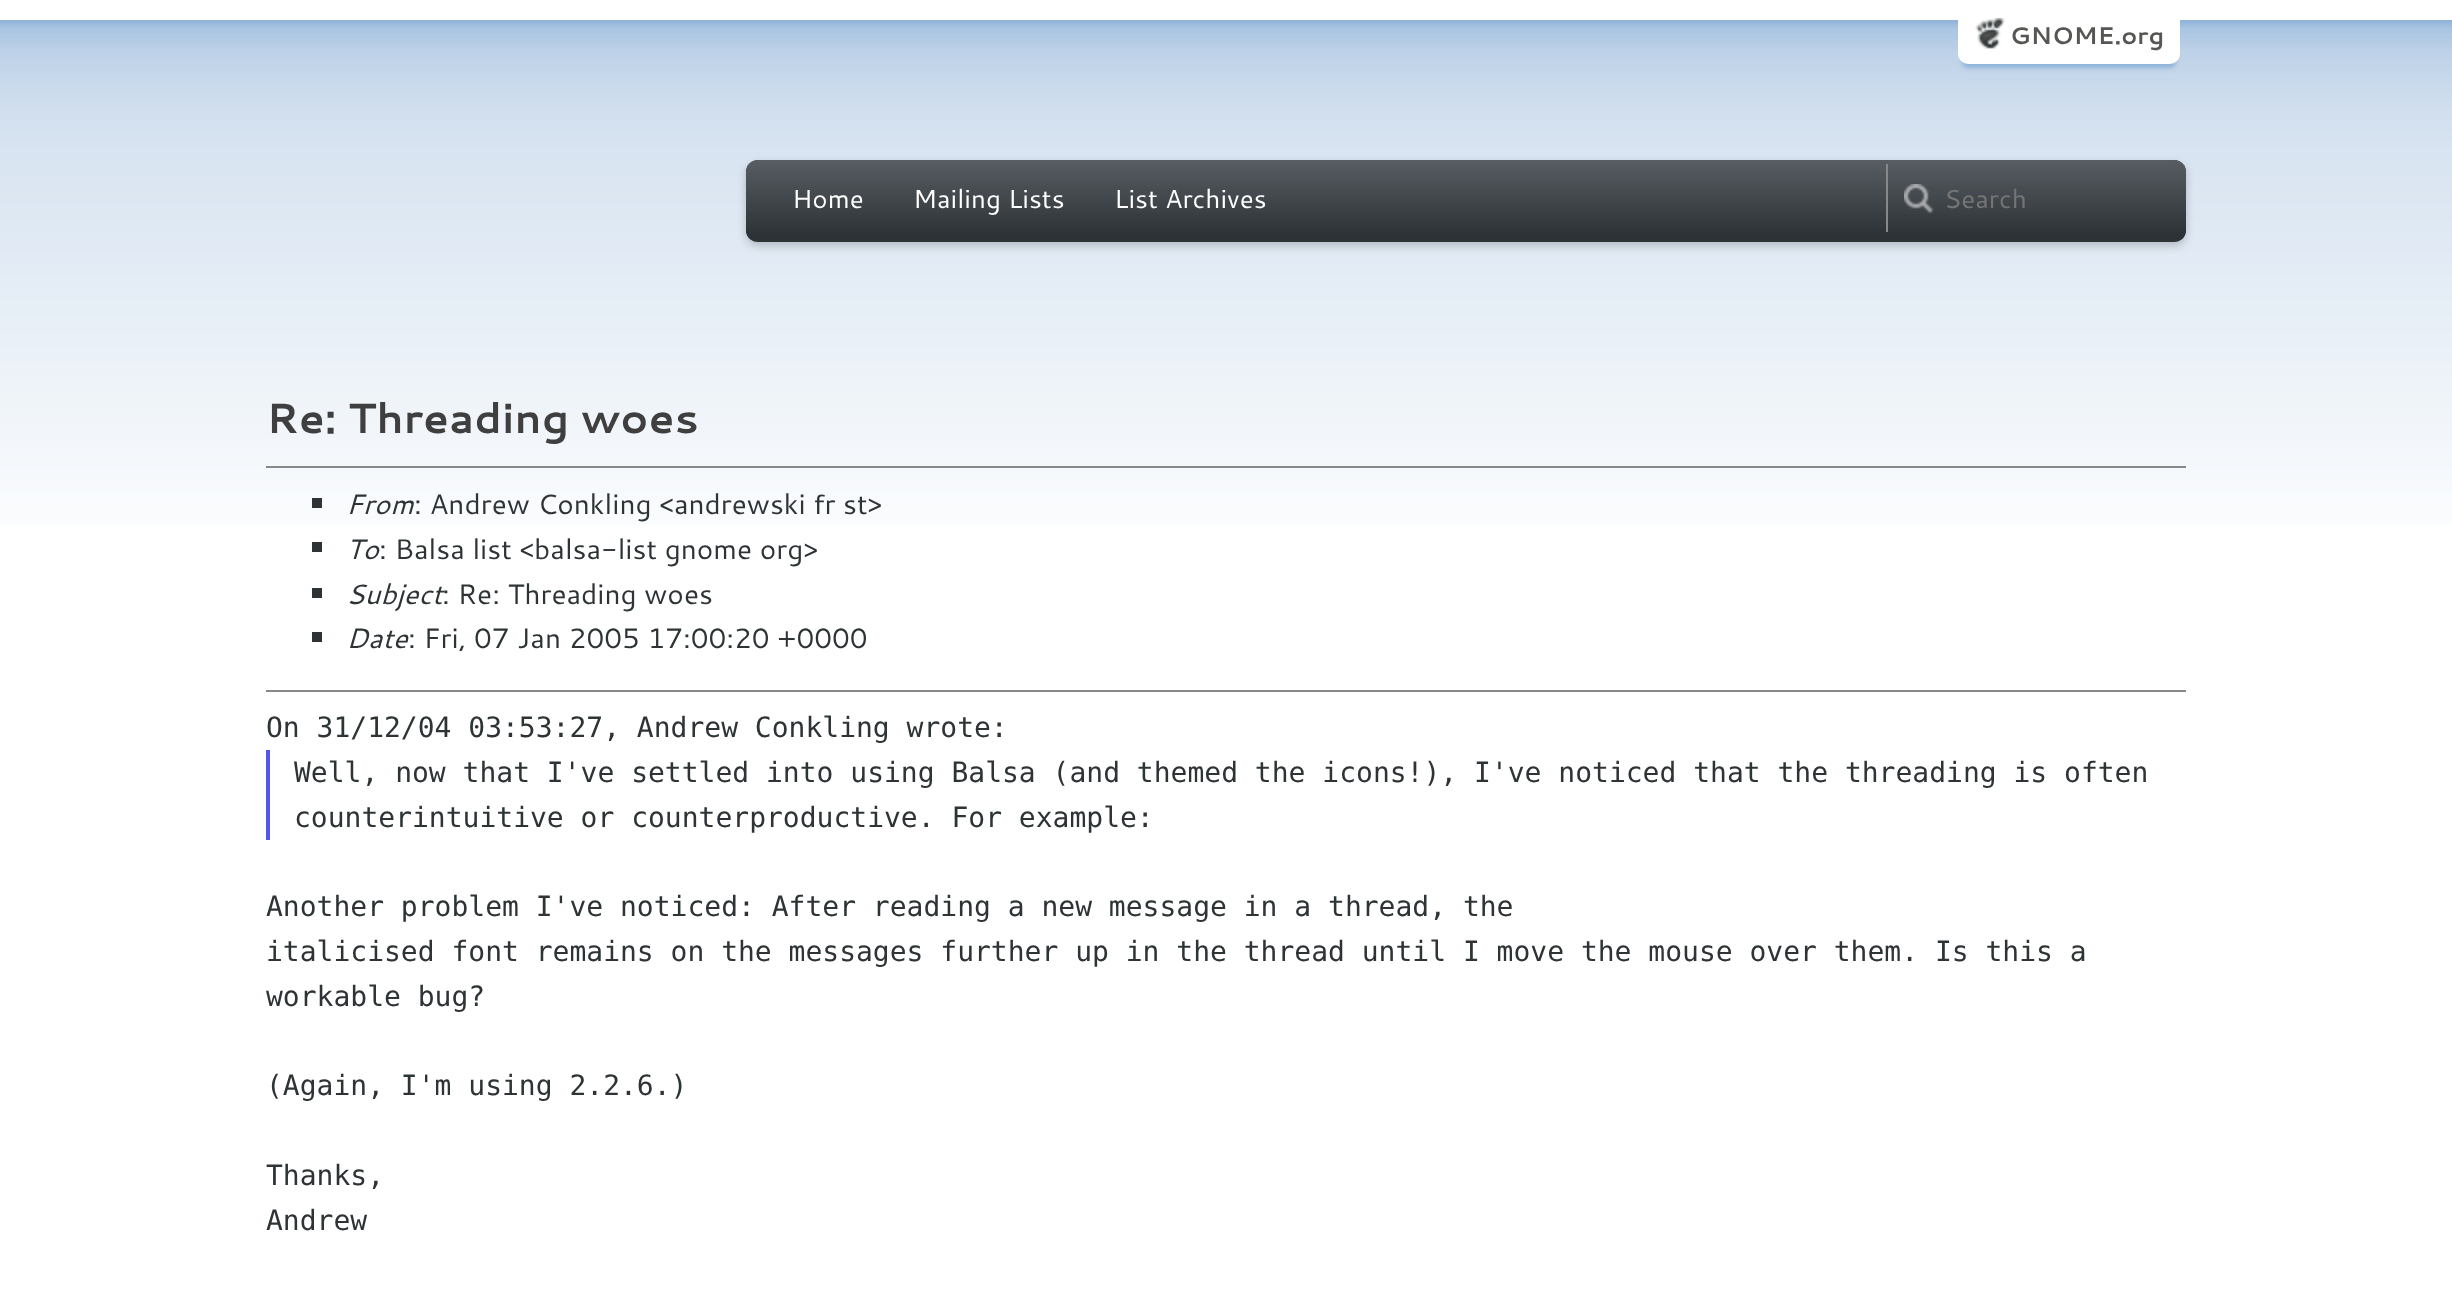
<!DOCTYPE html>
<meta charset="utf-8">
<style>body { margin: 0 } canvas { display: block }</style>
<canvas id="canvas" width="2452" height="1304"></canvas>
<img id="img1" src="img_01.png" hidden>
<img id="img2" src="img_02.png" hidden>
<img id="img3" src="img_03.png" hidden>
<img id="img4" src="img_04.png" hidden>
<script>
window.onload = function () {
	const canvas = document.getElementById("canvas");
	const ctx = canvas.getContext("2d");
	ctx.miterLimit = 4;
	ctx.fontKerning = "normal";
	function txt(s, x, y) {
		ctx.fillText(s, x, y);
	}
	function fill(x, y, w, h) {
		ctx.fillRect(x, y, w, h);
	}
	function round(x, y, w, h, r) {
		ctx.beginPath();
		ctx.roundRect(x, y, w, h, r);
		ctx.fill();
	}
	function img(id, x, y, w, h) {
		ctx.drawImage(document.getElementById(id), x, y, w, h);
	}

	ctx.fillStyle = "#FFFFFF";
	fill(0, 0, 2452, 1304);
	img("img1", 0, 20, 2452, 505);
	ctx.fillStyle = "#8FB3D9";
	ctx.filter = "blur(2px)";
	ctx.beginPath();
	ctx.roundRect(1962, 20, 214, 48, 6);
	ctx.fill();
	ctx.filter = "none";
	ctx.fillStyle = "#FFFFFF";
	round(1958, 8, 222, 56, 10);
	img("img2", 1975, 18, 30, 31);
	ctx.fillStyle = "rgba(0, 0, 0, 0.2)";
	ctx.filter = "blur(4px)";
	ctx.beginPath();
	ctx.roundRect(746, 164, 1440, 82, 12);
	ctx.fill();
	ctx.filter = "none";
	ctx.fillStyle = "#2E3436";
	round(746, 160, 1440, 82, 12);
	img("img3", 746, 160, 1440, 80);
	img("img4", 1904, 184, 30, 30);
	ctx.fillStyle = "#888888";
	fill(1886, 164, 2, 68);
	fill(266, 466, 1920, 2);
	ctx.fillStyle = "#2E3436";
	fill(312, 498, 10, 10);
	fill(312, 542, 10, 10);
	fill(312, 588, 10, 10);
	fill(312, 632, 10, 10);
	ctx.fillStyle = "#888888";
	fill(266, 690, 1920, 2);
	ctx.fillStyle = "#5555EE";
	fill(266, 750, 4, 90);
	ctx.font = "bold 24px Cantarell";
	ctx.fillStyle = "#555753";
	txt("GNOME.org", 2010, 44);
	ctx.font = "26px Cantarell";
	ctx.fillStyle = "#FFFFFF";
	txt("Home", 792, 208);
	txt("Mailing Lists", 913, 208);
	txt("List Archives", 1114, 208);
	ctx.fillStyle = "#757575";
	txt("Search", 1944, 208);
	ctx.font = "bold 42px Cantarell";
	ctx.fillStyle = "#3F3F3F";
	txt("Re: Threading woes", 266, 433);
	ctx.font = "italic 28px Cantarell";
	ctx.fillStyle = "#2E3436";
	txt("From", 346, 514);
	ctx.font = "28px Cantarell";
	txt(": Andrew Conkling <andrewski fr st>", 414, 514);
	ctx.font = "italic 28px Cantarell";
	txt("To", 346, 559);
	ctx.font = "28px Cantarell";
	txt(": Balsa list <balsa-list gnome org>", 379, 559);
	ctx.font = "italic 28px Cantarell";
	txt("Subject", 346, 604);
	ctx.font = "28px Cantarell";
	txt(": Re: Threading woes", 442, 604);
	ctx.font = "italic 28px Cantarell";
	txt("Date", 346, 648);
	ctx.font = "28px Cantarell";
	txt(": Fri, 07 Jan 2005 17:00:20 +0000", 408, 648);
	ctx.font = "28px DejaVu Sans Mono";
	txt("On 31/12/04 03:53:27, Andrew Conkling wrote:", 266, 737);
	txt("Well, now that I've settled into using Balsa (and themed the icons!), I've noticed that the threading is often", 294, 782);
	txt("counterintuitive or counterproductive. For example:", 294, 827);
	txt("Another problem I've noticed: After reading a new message in a thread, the", 266, 916);
	txt("italicised font remains on the messages further up in the thread until I move the mouse over them. Is this a", 266, 961);
	txt("workable bug?", 266, 1006);
	txt("(Again, I'm using 2.2.6.)", 266, 1095);
	txt("Thanks,", 266, 1185);
	txt("Andrew", 266, 1230);
};
</script>
